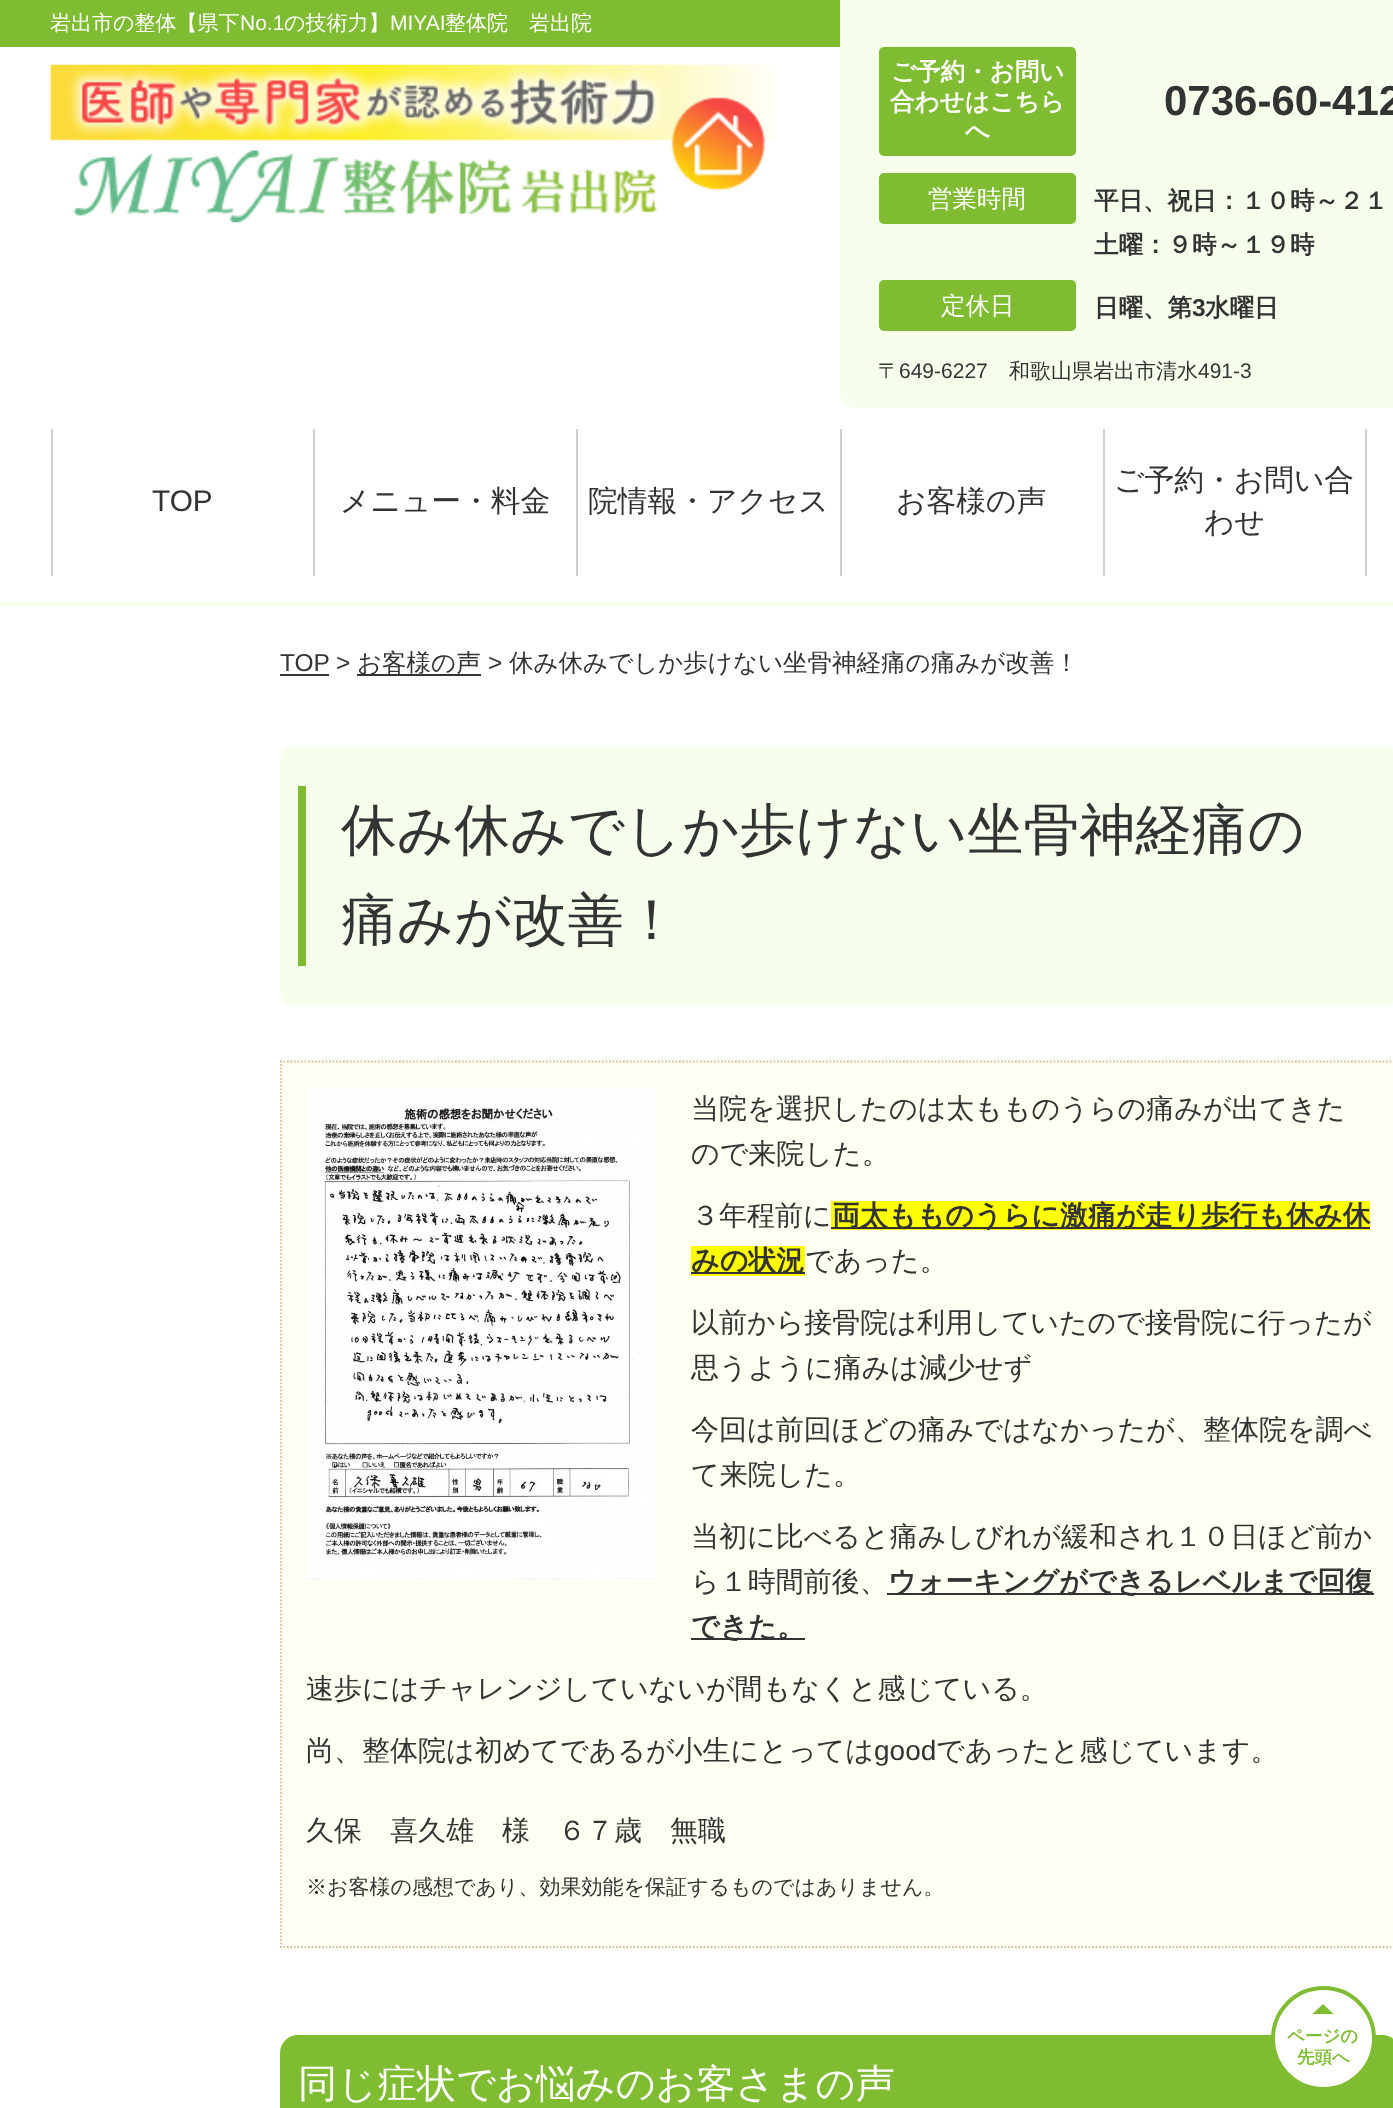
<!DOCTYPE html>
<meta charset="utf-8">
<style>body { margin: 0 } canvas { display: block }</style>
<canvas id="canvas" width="1393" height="2108"></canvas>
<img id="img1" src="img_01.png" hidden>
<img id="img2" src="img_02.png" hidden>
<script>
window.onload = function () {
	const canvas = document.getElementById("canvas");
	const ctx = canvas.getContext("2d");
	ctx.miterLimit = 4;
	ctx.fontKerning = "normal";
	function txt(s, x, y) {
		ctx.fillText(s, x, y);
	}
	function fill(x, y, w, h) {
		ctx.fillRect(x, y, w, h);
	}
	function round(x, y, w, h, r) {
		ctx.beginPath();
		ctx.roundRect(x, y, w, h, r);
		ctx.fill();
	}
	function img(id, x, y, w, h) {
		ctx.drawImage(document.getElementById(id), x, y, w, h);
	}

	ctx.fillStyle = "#FFFFFF";
	fill(0, 0, 1393, 2108);
	ctx.fillStyle = "#7FBC32";
	fill(0, 0, 840, 47);
	img("img1", 50, 64, 726, 159);
	ctx.fillStyle = "#F6FFEB";
	ctx.beginPath();
	ctx.moveTo(840, 0);
	ctx.lineTo(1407, 0);
	ctx.lineTo(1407, 394);
	ctx.bezierCurveTo(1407, 401.5, 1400.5, 408, 1393, 408);
	ctx.lineTo(854, 408);
	ctx.bezierCurveTo(846.5, 408, 840, 401.5, 840, 394);
	ctx.closePath();
	ctx.fill();
	ctx.fillStyle = "#7FBC32";
	round(879, 47, 197, 109, 5);
	round(879, 173, 197, 51, 5);
	round(879, 280, 197, 51, 5);
	ctx.fillStyle = "#F6FFEB";
	fill(0, 602, 1393, 5);
	ctx.fillStyle = "#CFCFCF";
	fill(313, 429, 2, 147);
	fill(51, 429, 2, 147);
	fill(576, 429, 2, 147);
	fill(840, 429, 2, 147);
	fill(1103, 429, 2, 147);
	fill(1365, 429, 2, 147);
	ctx.fillStyle = "#333333";
	fill(280, 674, 49, 2);
	fill(357, 674, 124, 2);
	ctx.fillStyle = "#F6FFEB";
	round(280, 747, 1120, 258, 14);
	ctx.fillStyle = "#7FBC32";
	fill(298, 786, 8, 180);
	ctx.fillStyle = "#FFFFF3";
	fill(280, 1061, 1113, 887);
	ctx.beginPath();
	ctx.moveTo(280, 1061.5);
	ctx.lineTo(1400, 1061.5);
	ctx.strokeStyle = "#D4C09D";
	ctx.lineWidth = 1.8;
	ctx.setLineDash([1.75, 1.75]);
	ctx.stroke();
	ctx.beginPath();
	ctx.moveTo(280, 1947);
	ctx.lineTo(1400, 1947);
	ctx.stroke();
	ctx.beginPath();
	ctx.moveTo(281, 1060.5);
	ctx.lineTo(281, 1948);
	ctx.stroke();
	img("img2", 306, 1087, 350, 493);
	ctx.fillStyle = "#FFFF00";
	fill(831, 1201, 539, 29);
	ctx.fillStyle = "#333333";
	fill(831, 1227, 539, 2);
	ctx.fillStyle = "#FFFF00";
	fill(691, 1246, 114, 30);
	ctx.fillStyle = "#333333";
	fill(691, 1272, 114, 2);
	fill(887, 1593, 487, 2);
	fill(691, 1638, 114, 2);
	ctx.fillStyle = "#7FBC32";
	round(280, 2035, 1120, 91, 18);
	ctx.fillStyle = "#FFFFFF";
	ctx.beginPath();
	ctx.arc(1323.5, 2038.5, 50.5, 0, Math.PI * 2);
	ctx.fill();
	ctx.strokeStyle = "#7FBC32";
	ctx.lineWidth = 4;
	ctx.setLineDash([]);
	ctx.stroke();
	ctx.fillStyle = "#7FBC32";
	ctx.beginPath();
	ctx.moveTo(1333.5, 2014);
	ctx.lineTo(1312.5, 2014);
	ctx.lineTo(1323, 2004);
	ctx.closePath();
	ctx.fill();
	ctx.font = "500 21px WenQuanYi Zen Hei";
	ctx.fillStyle = "#FFFFFF";
	txt("岩出市の整体【県下", 50, 30);
	ctx.font = "21px Liberation Sans";
	txt("No.1", 240, 30);
	ctx.font = "500 21px WenQuanYi Zen Hei";
	txt("の技術力】", 284, 30);
	ctx.font = "21px Liberation Sans";
	txt("MIYAI", 390, 30);
	ctx.font = "500 21px WenQuanYi Zen Hei";
	txt("整体院　岩出院", 445, 30);
	ctx.font = "bold 24.5px WenQuanYi Zen Hei";
	txt("ご予約・お問い", 891, 80);
	txt("合わせはこちら", 890, 110);
	txt("へ", 965, 139);
	ctx.font = "bold 42px Liberation Sans";
	ctx.fillStyle = "#333333";
	txt("0736-60-412", 1164, 115);
	ctx.font = "500 24.5px WenQuanYi Zen Hei";
	ctx.fillStyle = "#FFFFFF";
	txt("営業時間", 928, 207);
	ctx.font = "bold 24.5px WenQuanYi Zen Hei";
	ctx.fillStyle = "#333333";
	txt("平日、祝日：１０時～２１", 1094, 209);
	txt("土曜：９時～１９時", 1094, 253);
	ctx.font = "500 24.5px WenQuanYi Zen Hei";
	ctx.fillStyle = "#FFFFFF";
	txt("定休日", 941, 314);
	ctx.font = "bold 24.5px WenQuanYi Zen Hei";
	ctx.fillStyle = "#333333";
	txt("日曜、第", 1094, 316);
	ctx.font = "bold 24.5px Liberation Sans";
	txt("3", 1192, 316);
	ctx.font = "bold 24.5px WenQuanYi Zen Hei";
	txt("水曜日", 1205, 316);
	ctx.font = "500 21px WenQuanYi Zen Hei";
	txt("〒", 878, 378);
	ctx.font = "21px Liberation Sans";
	txt("649-6227", 899, 378);
	ctx.font = "500 21px WenQuanYi Zen Hei";
	txt("和歌山県岩出市清水", 1009, 378);
	ctx.font = "21px Liberation Sans";
	txt("491-3", 1198, 378);
	ctx.font = "29.75px Liberation Sans";
	txt("TOP", 152, 511);
	ctx.font = "500 29.75px WenQuanYi Zen Hei";
	txt("メニュー・料金", 340, 511);
	txt("院情報・アクセス", 588, 511);
	txt("お客様の声", 896, 511);
	txt("ご予約・お問い合", 1114, 490);
	txt("わせ", 1204, 532);
	ctx.font = "24.5px Liberation Sans";
	txt("TOP", 280, 671);
	txt(">", 336, 671);
	ctx.font = "500 24.5px WenQuanYi Zen Hei";
	txt("お客様の声", 357, 671);
	ctx.font = "24.5px Liberation Sans";
	txt(">", 488, 671);
	ctx.font = "500 24.5px WenQuanYi Zen Hei";
	txt("休み休みでしか歩けない坐骨神経痛の痛みが改善！", 509, 671);
	ctx.font = "500 56px WenQuanYi Zen Hei";
	txt("休み休みでしか歩けない坐骨神経痛の", 341, 849);
	txt("痛みが改善！", 341, 939);
	ctx.font = "500 28px WenQuanYi Zen Hei";
	txt("当院を選択したのは太もものうらの痛みが出てきた", 691, 1118);
	txt("ので来院した。", 691, 1163);
	txt("３年程前に", 691, 1225);
	ctx.font = "bold 28px WenQuanYi Zen Hei";
	txt("両太もものうらに激痛が走り歩行も休み休", 832, 1225);
	txt("みの状況", 691, 1270);
	ctx.font = "500 28px WenQuanYi Zen Hei";
	txt("であった。", 805, 1270);
	txt("以前から接骨院は利用していたので接骨院に行ったが", 691, 1332);
	txt("思うように痛みは減少せず", 691, 1377);
	txt("今回は前回ほどの痛みではなかったが、整体院を調べ", 691, 1439);
	txt("て来院した。", 691, 1484);
	txt("当初に比べると痛みしびれが緩和され１０日ほど前か", 691, 1546);
	txt("ら１時間前後、", 691, 1591);
	ctx.font = "bold 28px WenQuanYi Zen Hei";
	txt("ウォーキングができるレベルまで回復", 888, 1591);
	txt("できた。", 691, 1636);
	ctx.font = "500 28px WenQuanYi Zen Hei";
	txt("速歩にはチャレンジしていないが間もなくと感じている。", 306, 1698);
	txt("尚、整体院は初めてであるが小生にとっては", 306, 1760);
	ctx.font = "28px Liberation Sans";
	txt("good", 874, 1760);
	ctx.font = "500 28px WenQuanYi Zen Hei";
	txt("であったと感じています。", 936, 1760);
	txt("久保　喜久雄　様　６７歳　無職", 306, 1840);
	ctx.font = "500 21px WenQuanYi Zen Hei";
	txt("※お客様の感想であり、効果効能を保証するものではありません。", 306, 1894);
	ctx.font = "500 39.25px WenQuanYi Zen Hei";
	ctx.fillStyle = "#FFFFFF";
	txt("同じ症状でお悩みのお客さまの声", 298, 2097);
	ctx.font = "bold 17.5px WenQuanYi Zen Hei";
	ctx.fillStyle = "#7FBC32";
	txt("ページの", 1287, 2042);
	txt("先頭へ", 1297, 2063);
};
</script>
